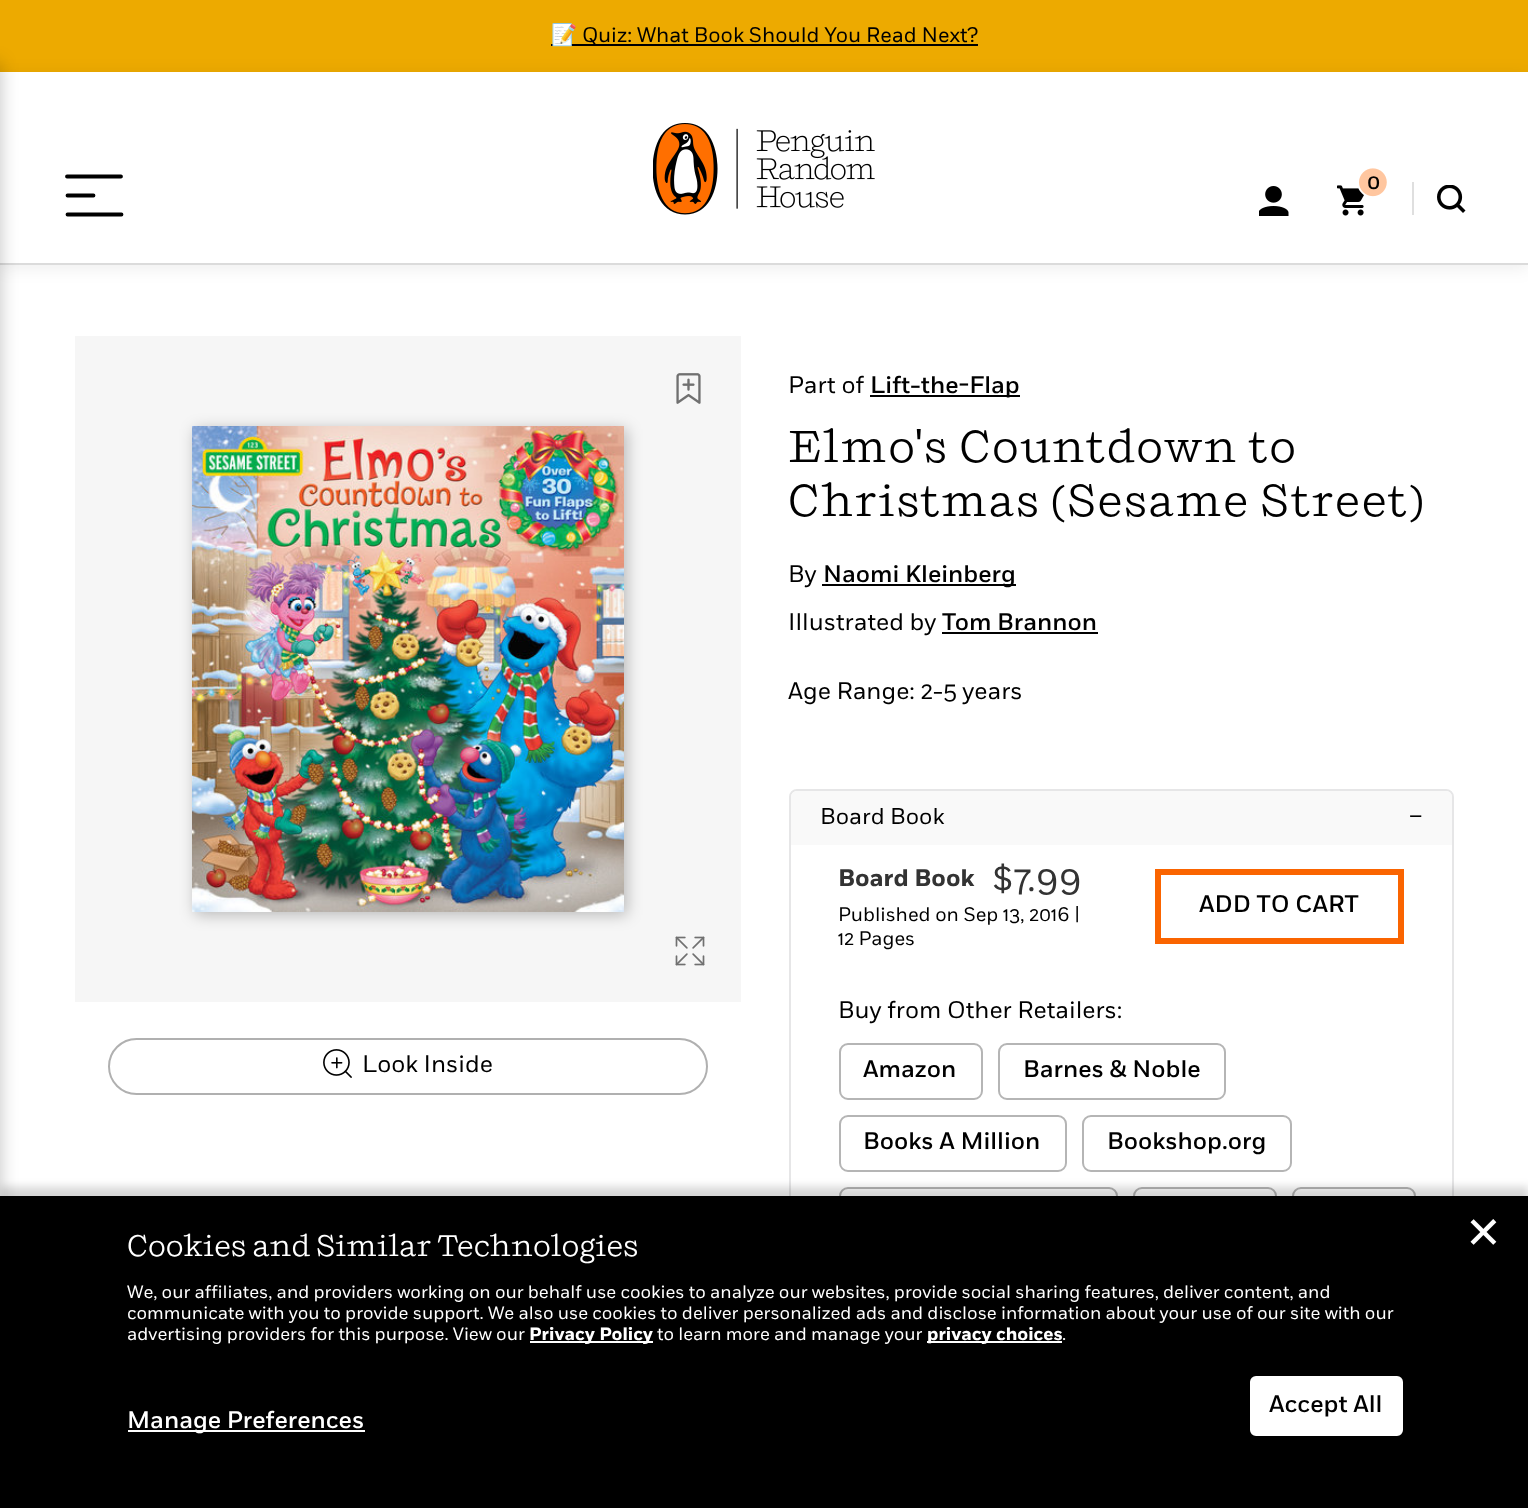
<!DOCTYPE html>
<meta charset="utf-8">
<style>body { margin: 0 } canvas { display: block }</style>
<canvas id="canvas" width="1528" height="1508"></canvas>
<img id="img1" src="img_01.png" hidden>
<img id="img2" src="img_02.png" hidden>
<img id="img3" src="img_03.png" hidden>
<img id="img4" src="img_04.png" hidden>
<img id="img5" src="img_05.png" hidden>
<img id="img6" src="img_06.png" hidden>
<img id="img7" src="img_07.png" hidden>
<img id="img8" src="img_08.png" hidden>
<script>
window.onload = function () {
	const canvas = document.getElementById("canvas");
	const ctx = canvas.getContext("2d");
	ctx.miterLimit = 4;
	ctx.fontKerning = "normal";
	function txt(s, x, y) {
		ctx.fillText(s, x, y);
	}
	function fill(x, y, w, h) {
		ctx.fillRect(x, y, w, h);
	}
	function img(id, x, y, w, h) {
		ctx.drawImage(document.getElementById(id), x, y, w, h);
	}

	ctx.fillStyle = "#FFFFFF";
	fill(0, 0, 1528, 1508);
	ctx.fillStyle = "#EDAA00";
	fill(0, 0, 1528, 72);
	ctx.save();
	ctx.beginPath();
	ctx.moveTo(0, 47);
	ctx.lineTo(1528, 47);
	ctx.lineTo(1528, 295);
	ctx.lineTo(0, 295);
	ctx.closePath();
	ctx.moveTo(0, 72);
	ctx.lineTo(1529, 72);
	ctx.lineTo(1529, 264);
	ctx.lineTo(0, 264);
	ctx.closePath();
	ctx.clip("evenodd");
	ctx.fillStyle = "rgba(0, 0, 0, 0.08)";
	ctx.filter = "blur(9px)";
	ctx.beginPath();
	ctx.rect(0, 75, 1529, 192);
	ctx.fill();
	ctx.filter = "none";
	ctx.restore();
	ctx.fillStyle = "#DBDBDB";
	fill(0, 263, 1528, 2);
	ctx.fillStyle = "rgba(0, 0, 0, 0.24)";
	ctx.filter = "blur(9px)";
	ctx.beginPath();
	ctx.rect(-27, 63, 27, 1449);
	ctx.fill();
	ctx.filter = "none";
	ctx.fillStyle = "#000000";
	fill(551, 44, 427, 2);
	ctx.beginPath();
	ctx.moveTo(67, 176.5);
	ctx.lineTo(121, 176.5);
	ctx.moveTo(67.5, 195.5);
	ctx.lineTo(93.5, 195.5);
	ctx.moveTo(67.5, 214.5);
	ctx.lineTo(121.5, 214.5);
	ctx.strokeStyle = "#000000";
	ctx.lineWidth = 3.8;
	ctx.lineCap = "round";
	ctx.stroke();
	img("img1", 653, 123, 222, 92);
	img("img2", 1259, 186, 30, 30);
	img("img3", 1337, 168, 50, 48);
	ctx.fillStyle = "#DFDFDF";
	fill(1412, 182, 2, 33);
	img("img4", 1437, 185, 29, 28);
	ctx.fillStyle = "#F6F6F6";
	fill(75, 336, 666, 666);
	img("img5", 676, 373, 25, 31);
	ctx.fillStyle = "rgba(0, 0, 0, 0.25)";
	ctx.filter = "blur(7.5px)";
	ctx.beginPath();
	ctx.rect(195, 429, 432, 486);
	ctx.fill();
	ctx.filter = "none";
	img("img6", 192, 426, 432, 486);
	img("img7", 675, 936, 30, 30);
	ctx.beginPath();
	ctx.roundRect(109, 1039, 598, 55, 27.5);
	ctx.strokeStyle = "#B0B0B0";
	ctx.lineWidth = 2;
	ctx.stroke();
	img("img8", 323, 1049, 29, 29);
	ctx.fillStyle = "#000000";
	fill(870, 395, 150, 2);
	fill(822, 584, 194, 2);
	fill(942, 632, 156, 2);
	ctx.beginPath();
	ctx.roundRect(790, 790, 663, 574, 7);
	ctx.strokeStyle = "#E6E6E7";
	ctx.stroke();
	ctx.fillStyle = "#F9F9F9";
	ctx.beginPath();
	ctx.roundRect(791, 791, 661, 54, [6, 6, 0, 0]);
	ctx.fill();
	ctx.strokeStyle = "#FA6400";
	ctx.lineWidth = 6;
	ctx.strokeRect(1158, 872, 243, 69);
	ctx.beginPath();
	ctx.roundRect(840, 1044, 142, 55, 8);
	ctx.strokeStyle = "#B5B5B5";
	ctx.lineWidth = 2;
	ctx.stroke();
	ctx.beginPath();
	ctx.roundRect(999, 1044, 226, 55, 8);
	ctx.stroke();
	ctx.beginPath();
	ctx.roundRect(840, 1116, 226, 55, 8);
	ctx.stroke();
	ctx.beginPath();
	ctx.roundRect(1083, 1116, 208, 55, 8);
	ctx.stroke();
	ctx.beginPath();
	ctx.roundRect(840, 1188, 277, 55, 8);
	ctx.stroke();
	ctx.beginPath();
	ctx.roundRect(1134, 1188, 142, 55, 8);
	ctx.stroke();
	ctx.beginPath();
	ctx.roundRect(1293, 1188, 122, 55, 8);
	ctx.stroke();
	ctx.fillStyle = "rgba(0, 0, 0, 0.16)";
	ctx.filter = "blur(4.5px)";
	ctx.beginPath();
	ctx.rect(0, 1187, 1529, 313);
	ctx.fill();
	ctx.filter = "none";
	ctx.fillStyle = "#000000";
	fill(0, 1196, 1528, 312);
	ctx.fillStyle = "#FFFFFF";
	fill(530, 1341, 123, 2);
	fill(927, 1341, 135, 2);
	ctx.beginPath();
	ctx.roundRect(1251.5, 1377.5, 150, 57, 4.5);
	ctx.fill();
	ctx.strokeStyle = "#FFFFFF";
	ctx.lineWidth = 3;
	ctx.stroke();
	fill(128, 1430, 237, 2);
	ctx.save();
	ctx.beginPath();
	ctx.rect(551, 23, 427, 27);
	ctx.clip();
	ctx.font = "21px Noto Color Emoji";
	ctx.fillStyle = "#000000";
	txt("📝", 551, 42);
	ctx.restore();
	ctx.font = "21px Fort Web";
	ctx.fillStyle = "#000000";
	txt("Quiz: What Book Should You Read Next?", 582, 42);
	ctx.font = "500 21px Fort Web";
	txt("0", 1367, 189);
	ctx.font = "24px Fort Web";
	txt("Look Inside", 362, 1072);
	txt("Part of", 788, 393);
	ctx.font = "500 24px Fort Web";
	txt("Lift-the-Flap", 870, 393);
	ctx.letterSpacing = "1.5px";
	ctx.font = "45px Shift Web";
	txt("Elmo's Countdown to", 788, 462);
	txt("Christmas (Sesame Street)", 788, 516);
	ctx.letterSpacing = "0px";
	ctx.font = "24px Fort Web";
	txt("By", 788, 582);
	ctx.font = "500 24px Fort Web";
	txt("Naomi Kleinberg", 823, 582);
	ctx.font = "24px Fort Web";
	txt("Illustrated by", 788, 630);
	ctx.font = "500 24px Fort Web";
	txt("Tom Brannon", 942, 630);
	ctx.font = "24px Fort Web";
	txt("Age Range: 2-5 years", 788, 699);
	ctx.font = "22.75px Fort Web";
	txt("Board Book", 820, 824);
	txt("–", 1409, 822);
	ctx.font = "bold 24px Fort Web";
	ctx.fillStyle = "#333333";
	txt("Board Book", 838, 886);
	ctx.font = "36px Fort Web";
	txt("$7.99", 992, 891);
	ctx.font = "19.5px Fort Web";
	ctx.fillStyle = "#000000";
	txt("Published on Sep 13, 2016 |", 838, 921);
	txt("12 Pages", 838, 945);
	ctx.font = "500 24px Fort Web";
	txt("ADD TO CART", 1199, 912);
	ctx.font = "24px Fort Web";
	txt("Buy from Other Retailers:", 838, 1018);
	ctx.font = "500 24px Fort Web";
	txt("Amazon", 863, 1077);
	txt("Barnes & Noble", 1023, 1077);
	txt("Books A Million", 863, 1149);
	txt("Bookshop.org", 1107, 1149);
	ctx.font = "30px Shift Web";
	ctx.fillStyle = "#FFFFFF";
	txt("Cookies and Similar Technologies", 127, 1256);
	ctx.font = "18px Fort Web";
	txt("We, our affiliates, and providers working on our behalf use cookies to analyze our websites, provide social sharing features, deliver content, and", 127, 1298);
	txt("communicate with you to provide support. We also use cookies to deliver personalized ads and disclose information about your use of our site with our", 127, 1319);
	txt("advertising providers for this purpose. View our", 127, 1340);
	ctx.font = "bold 18px Fort Web";
	txt("Privacy Policy", 529, 1340);
	ctx.font = "18px Fort Web";
	txt("to learn more and manage your", 657, 1340);
	ctx.font = "bold 18px Fort Web";
	txt("privacy choices", 927, 1340);
	ctx.font = "18px Fort Web";
	txt(".", 1062, 1340);
	ctx.font = "44px DejaVu Sans";
	txt("✕", 1465, 1248);
	ctx.font = "500 24px Fort Web";
	ctx.fillStyle = "#000000";
	txt("Accept All", 1269, 1412);
	ctx.fillStyle = "#FFFFFF";
	txt("Manage Preferences", 127, 1428);
};
</script>
